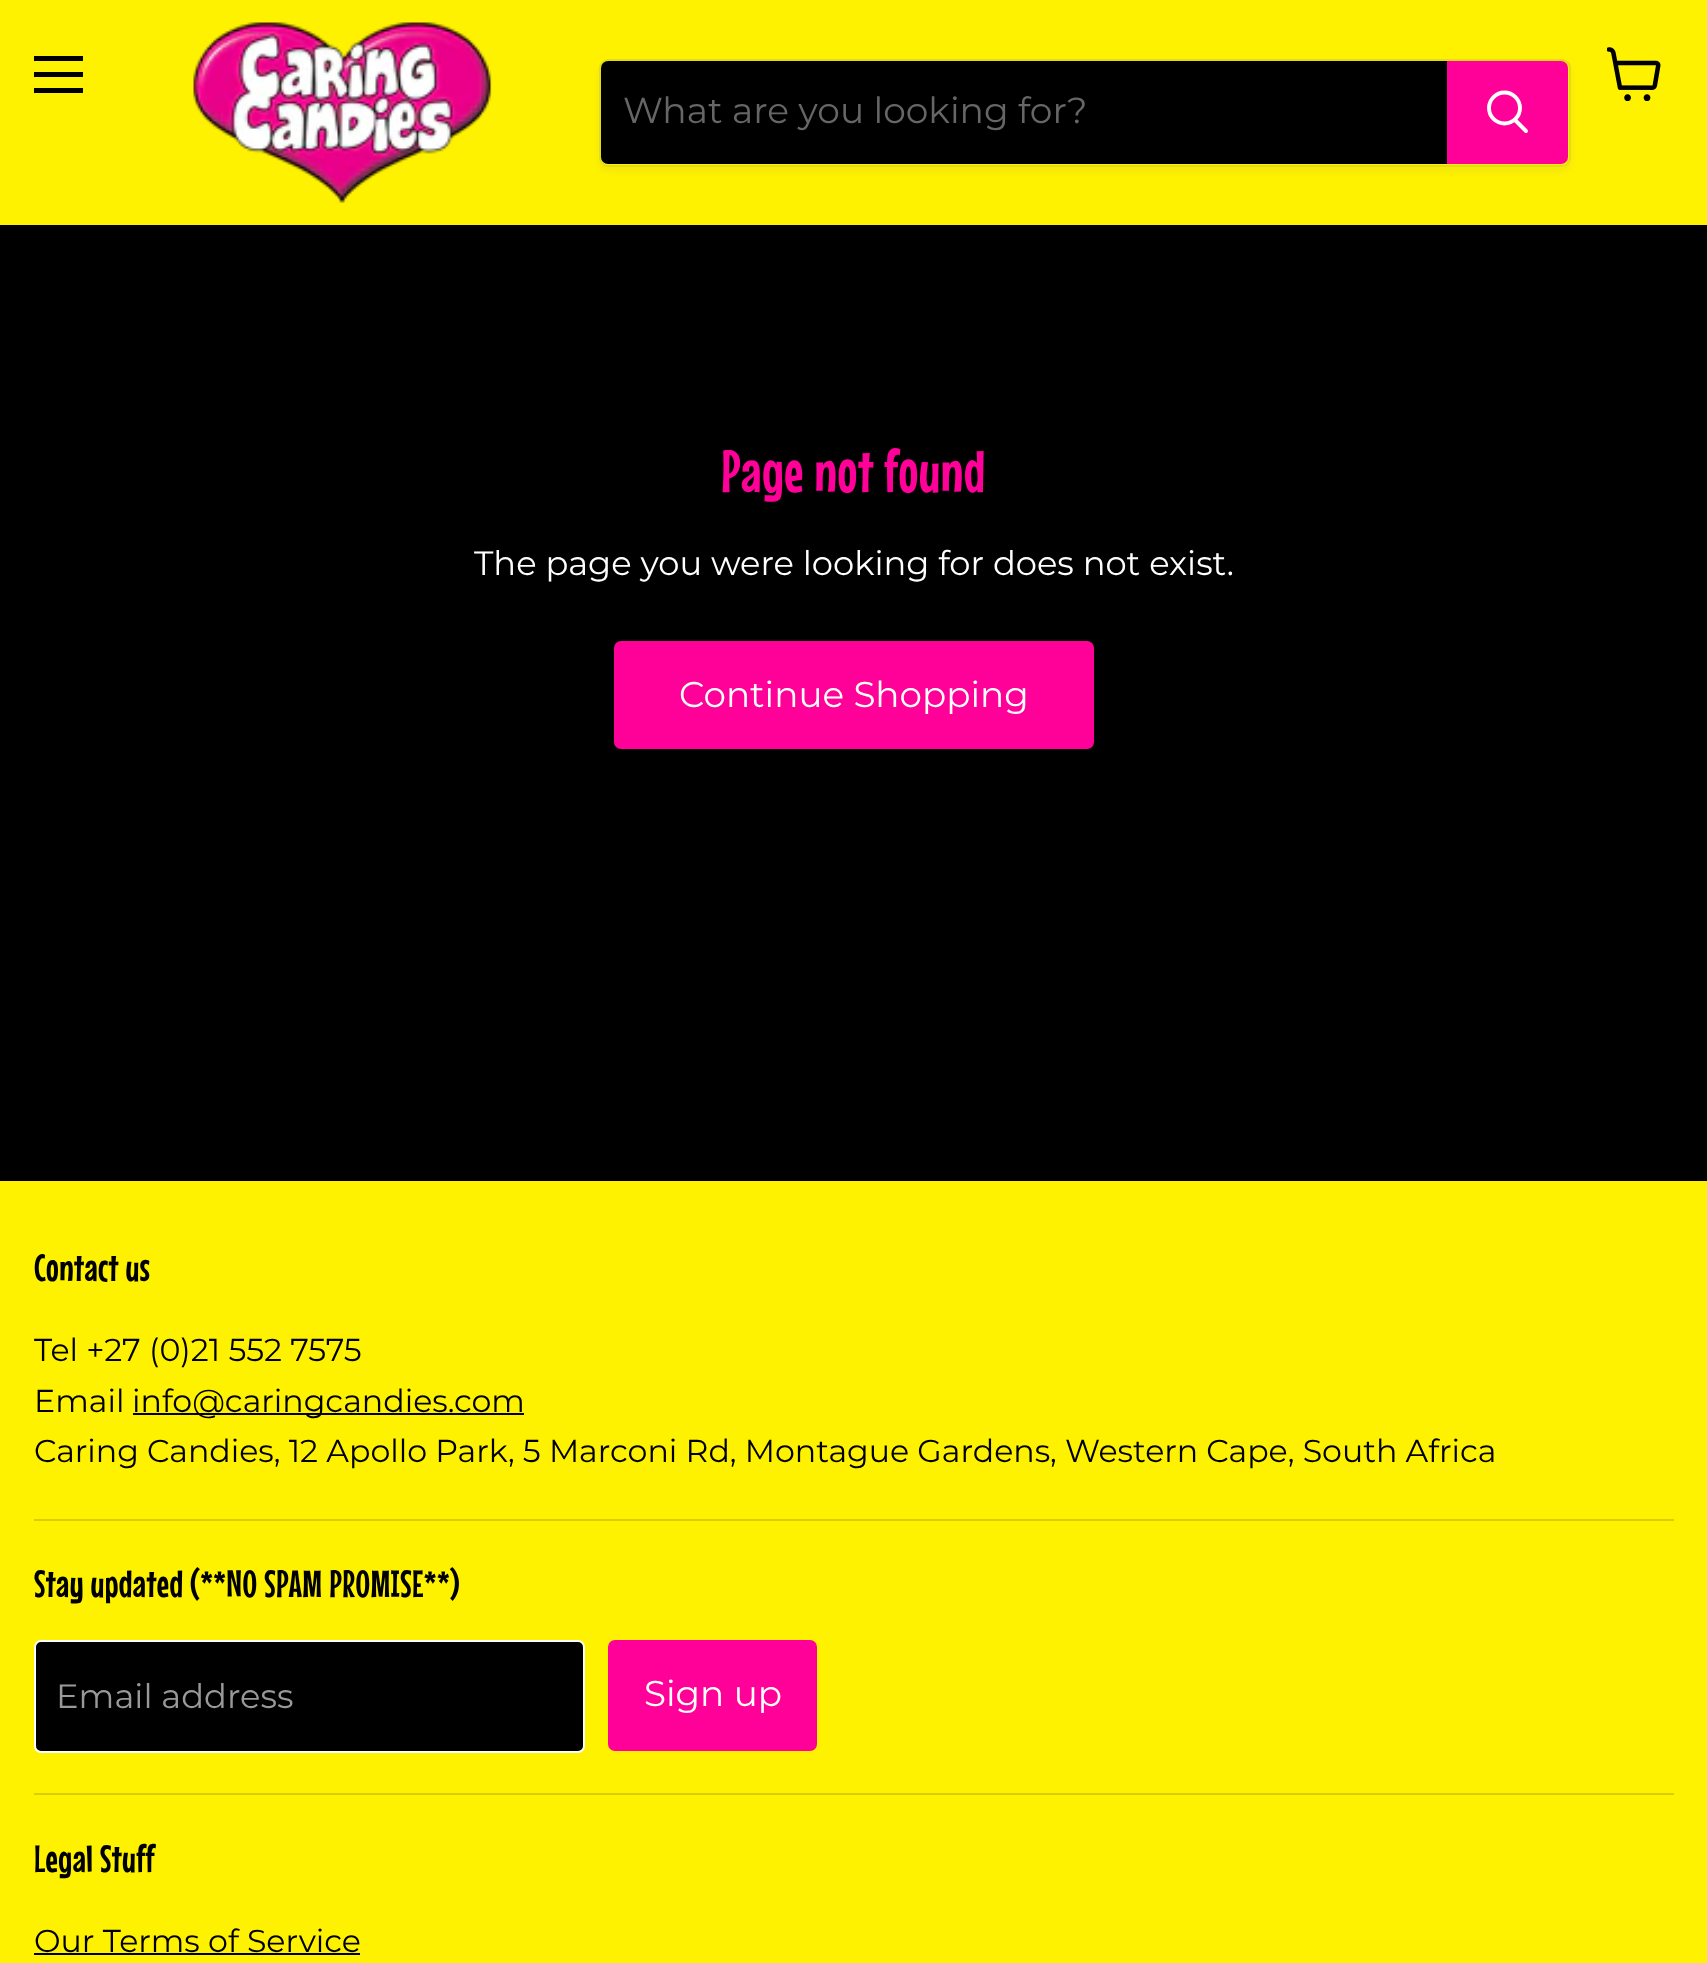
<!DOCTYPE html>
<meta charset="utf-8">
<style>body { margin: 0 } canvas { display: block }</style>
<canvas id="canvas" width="1707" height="1963"></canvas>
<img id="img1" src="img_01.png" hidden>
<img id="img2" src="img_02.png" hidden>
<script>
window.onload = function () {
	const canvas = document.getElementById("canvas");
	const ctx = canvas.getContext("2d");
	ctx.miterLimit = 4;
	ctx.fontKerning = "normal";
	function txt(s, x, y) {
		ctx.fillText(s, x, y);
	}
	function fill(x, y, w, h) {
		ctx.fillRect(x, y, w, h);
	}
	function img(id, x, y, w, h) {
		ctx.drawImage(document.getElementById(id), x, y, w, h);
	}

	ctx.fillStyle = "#000000";
	fill(0, 0, 1707, 1963);
	ctx.fillStyle = "#FFF200";
	fill(0, 0, 1707, 225);
	ctx.fillStyle = "#000000";
	fill(34, 56, 49, 5);
	fill(34, 72, 49, 5);
	fill(34, 88, 49, 5);
	img("img1", 1607, 47, 54, 54);
	img("img2", 193, 22, 299, 181);
	ctx.save();
	ctx.beginPath();
	ctx.moveTo(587, 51);
	ctx.lineTo(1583, 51);
	ctx.lineTo(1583, 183);
	ctx.lineTo(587, 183);
	ctx.closePath();
	ctx.moveTo(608, 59);
	ctx.lineTo(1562, 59);
	ctx.bezierCurveTo(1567, 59, 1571, 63, 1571, 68);
	ctx.lineTo(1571, 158);
	ctx.bezierCurveTo(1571, 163, 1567, 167, 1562, 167);
	ctx.lineTo(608, 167);
	ctx.bezierCurveTo(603, 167, 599, 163, 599, 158);
	ctx.lineTo(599, 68);
	ctx.bezierCurveTo(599, 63, 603, 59, 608, 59);
	ctx.closePath();
	ctx.clip("evenodd");
	ctx.fillStyle = "rgba(128, 128, 128, 0.11)";
	ctx.filter = "blur(3.5px)";
	ctx.beginPath();
	ctx.roundRect(599, 63, 972, 108, 9);
	ctx.fill();
	ctx.filter = "none";
	ctx.restore();
	ctx.beginPath();
	ctx.roundRect(600, 60, 970, 106, 8);
	ctx.strokeStyle = "rgba(128, 128, 128, 0.2)";
	ctx.lineWidth = 2;
	ctx.stroke();
	ctx.beginPath();
	ctx.roundRect(601, 61, 846, 103, [7, 0, 0, 7]);
	ctx.fill();
	ctx.fillStyle = "#FF0099";
	ctx.beginPath();
	ctx.roundRect(1448, 62, 119, 101, [0, 6, 6, 0]);
	ctx.fill();
	ctx.strokeStyle = "#FF0099";
	ctx.stroke();
	ctx.beginPath();
	ctx.moveTo(1526, 131);
	ctx.lineTo(1515.5, 120.5);
	ctx.strokeStyle = "#FFFFFF";
	ctx.lineWidth = 3.9;
	ctx.lineCap = "round";
	ctx.stroke();
	ctx.beginPath();
	ctx.arc(1504.5, 108, 15.5, 0, Math.PI * 2);
	ctx.stroke();
	ctx.beginPath();
	ctx.roundRect(615, 642, 478, 106, 6);
	ctx.fill();
	ctx.strokeStyle = "#FF0099";
	ctx.lineWidth = 2;
	ctx.stroke();
	ctx.fillStyle = "#FFF200";
	fill(0, 1181, 1707, 782);
	ctx.fillStyle = "#D9CE00";
	fill(34, 1519, 1640, 2);
	ctx.fillStyle = "#000000";
	fill(133, 1413, 391, 2);
	ctx.fillStyle = "#D9CE00";
	fill(34, 1793, 1640, 2);
	ctx.fillStyle = "#000000";
	ctx.beginPath();
	ctx.roundRect(35, 1641, 549, 111, 6);
	ctx.fill();
	ctx.strokeStyle = "#FFFFFF";
	ctx.stroke();
	ctx.fillStyle = "#FF0099";
	ctx.beginPath();
	ctx.roundRect(609, 1641, 207, 109, 6);
	ctx.fill();
	ctx.strokeStyle = "#FF0099";
	ctx.stroke();
	ctx.fillStyle = "#000000";
	fill(34, 1953, 326, 2);
	ctx.font = "100 36px Montserrat";
	ctx.fillStyle = "#666666";
	txt("What are you looking for?", 623, 123);
	ctx.letterSpacing = "0.6px";
	ctx.font = "59px Mouse Memoirs";
	ctx.fillStyle = "#FF0099";
	txt("Page not found", 721, 492);
	ctx.letterSpacing = "0px";
	ctx.font = "100 33.75px Montserrat";
	ctx.fillStyle = "#FFFFFF";
	txt("The page you were looking for does not exist.", 474, 575);
	ctx.font = "100 35.75px Montserrat";
	txt("Continue Shopping", 679, 707);
	ctx.letterSpacing = "0.4px";
	ctx.font = "38px Mouse Memoirs";
	ctx.fillStyle = "#000000";
	txt("Contact us", 34, 1281);
	ctx.letterSpacing = "0px";
	ctx.font = "100 31.65px Montserrat";
	txt("Tel +27 (0)21 552 7575", 34, 1361);
	txt("Email", 34, 1412);
	txt("info@caringcandies.com", 132, 1412);
	ctx.wordSpacing = "-0.1px";
	txt("Caring Candies, 12 Apollo Park, 5 Marconi Rd, Montague Gardens, Western Cape, South Africa", 34, 1462);
	ctx.letterSpacing = "0.4px";
	ctx.wordSpacing = "0px";
	ctx.font = "38px Mouse Memoirs";
	txt("Stay updated (**NO SPAM PROMISE**)", 34, 1597);
	ctx.letterSpacing = "0px";
	ctx.font = "100 33.75px Montserrat";
	ctx.fillStyle = "#999999";
	txt("Email address", 56, 1708);
	ctx.font = "100 35.75px Montserrat";
	ctx.fillStyle = "#FFFFFF";
	txt("Sign up", 644, 1706);
	ctx.letterSpacing = "0.4px";
	ctx.font = "38px Mouse Memoirs";
	ctx.fillStyle = "#000000";
	txt("Legal Stuff", 34, 1872);
	ctx.letterSpacing = "0px";
	ctx.font = "100 31.65px Montserrat";
	txt("Our Terms of Service", 34, 1952);
};
</script>
